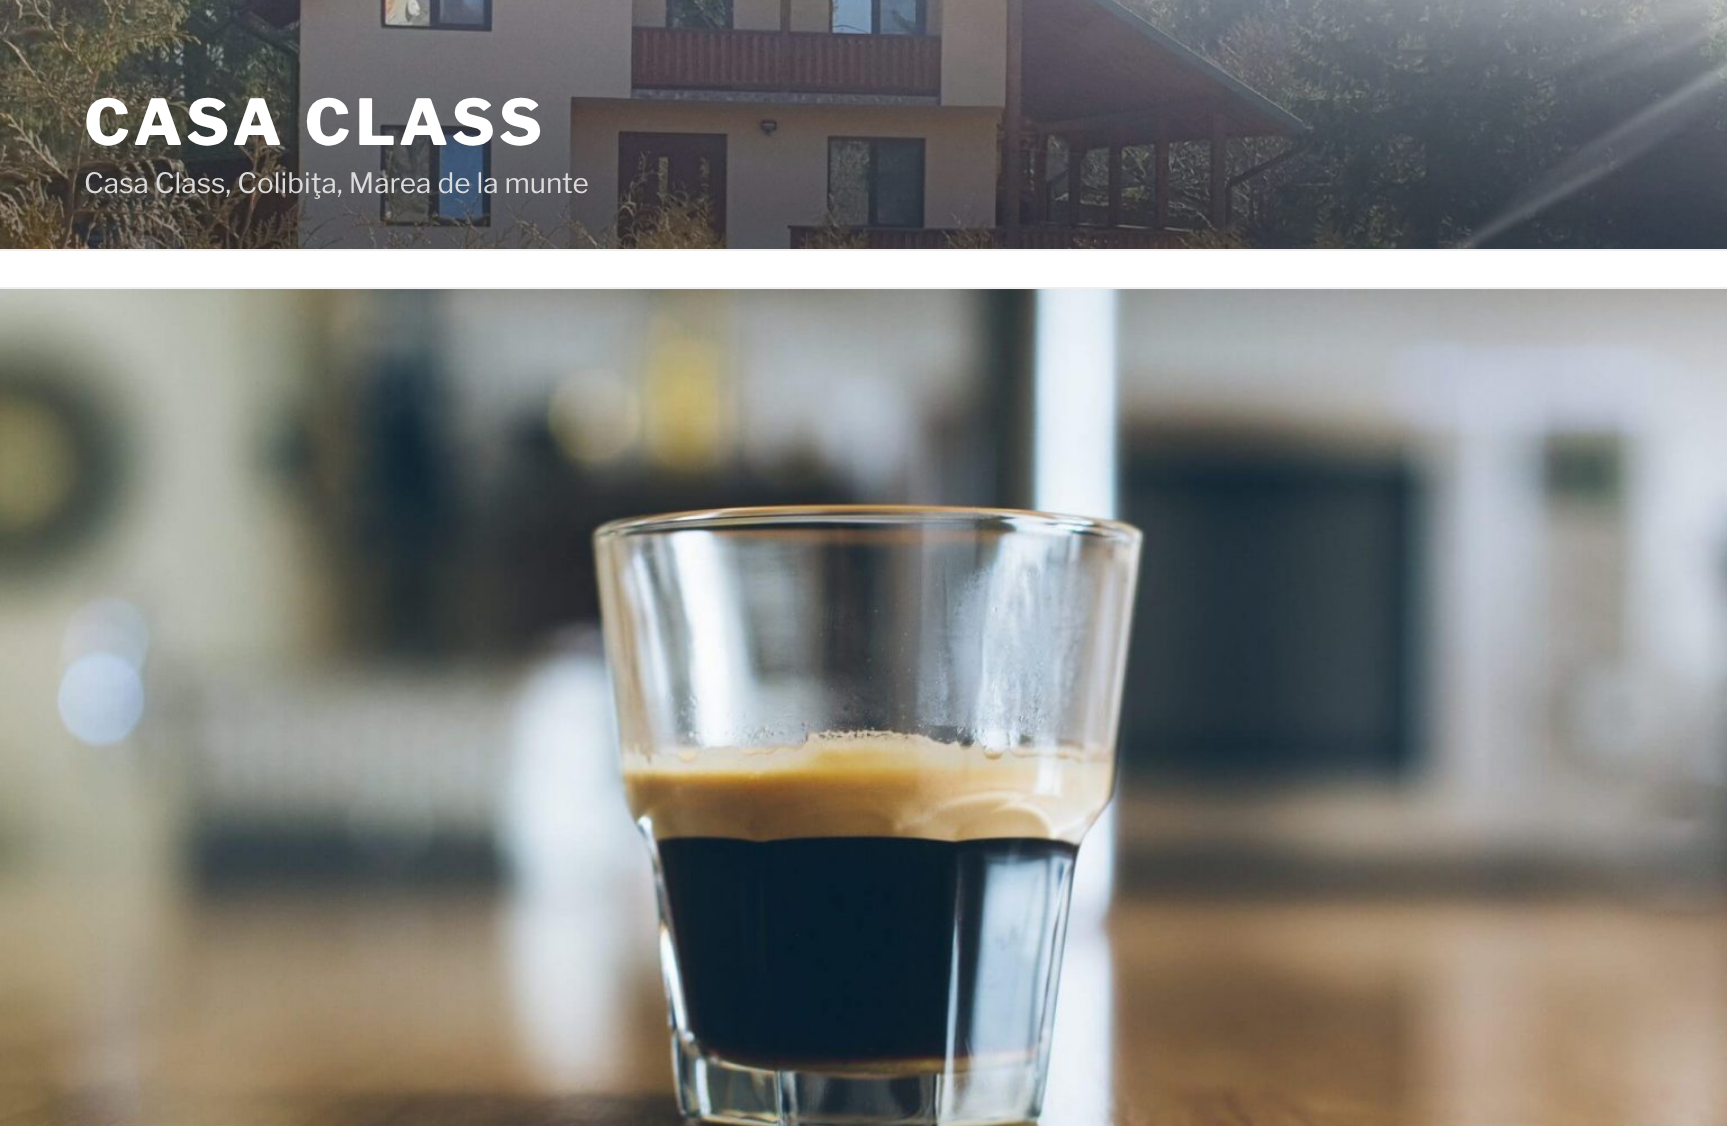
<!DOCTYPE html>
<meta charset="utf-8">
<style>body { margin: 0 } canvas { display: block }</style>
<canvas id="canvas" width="1727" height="1126"></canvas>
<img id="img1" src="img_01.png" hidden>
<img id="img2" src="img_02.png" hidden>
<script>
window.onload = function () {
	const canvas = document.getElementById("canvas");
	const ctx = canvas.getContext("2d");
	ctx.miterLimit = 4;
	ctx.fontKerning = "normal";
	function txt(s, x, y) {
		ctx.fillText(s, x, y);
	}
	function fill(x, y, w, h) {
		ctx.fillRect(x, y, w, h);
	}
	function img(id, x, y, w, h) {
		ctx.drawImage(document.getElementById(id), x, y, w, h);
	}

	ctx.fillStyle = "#FFFFFF";
	fill(0, 0, 1727, 1126);
	img("img1", 0, 0, 1727, 249);
	ctx.fillStyle = "#EEEEEE";
	fill(0, 249, 1727, 2);
	fill(0, 287, 1727, 2);
	img("img2", 0, 289, 1727, 837);
	ctx.letterSpacing = "5px";
	ctx.font = "100 63px Libre Franklin";
	ctx.fillStyle = "#FFFFFF";
	txt("CASA CLASS", 84, 145);
	ctx.letterSpacing = "0px";
	ctx.font = "100 28px 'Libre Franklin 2'";
	ctx.fillStyle = "#DBDBDB";
	txt("Casa Class, Colibiţa, Marea de la munte", 84, 193);
};
</script>
